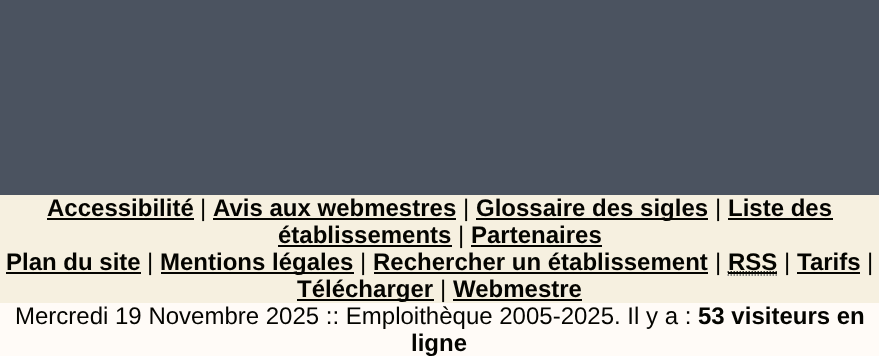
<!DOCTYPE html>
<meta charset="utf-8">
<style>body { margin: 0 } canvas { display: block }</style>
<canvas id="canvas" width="879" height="356"></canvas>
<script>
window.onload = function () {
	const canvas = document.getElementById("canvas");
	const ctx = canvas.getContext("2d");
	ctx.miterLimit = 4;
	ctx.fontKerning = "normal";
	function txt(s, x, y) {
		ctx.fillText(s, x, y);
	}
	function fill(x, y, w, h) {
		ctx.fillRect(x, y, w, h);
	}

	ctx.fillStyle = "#4B5360";
	fill(0, 0, 879, 356);
	ctx.fillStyle = "#F6F0E0";
	fill(0, 195, 879, 108);
	ctx.fillStyle = "#040400";
	fill(47, 218, 147, 2);
	fill(213, 218, 243, 2);
	fill(476, 218, 232, 2);
	fill(728, 218, 105, 2);
	fill(278, 245, 174, 2);
	fill(471, 245, 131, 2);
	fill(6, 272, 135, 2);
	fill(161, 272, 193, 2);
	fill(374, 272, 334, 2);
	ctx.beginPath();
	ctx.moveTo(727.5, 275);
	ctx.lineTo(777, 275);
	ctx.strokeStyle = "#666666";
	ctx.lineWidth = 1.5;
	ctx.setLineDash([1.5, 1.5]);
	ctx.stroke();
	ctx.beginPath();
	ctx.moveTo(727.5, 272);
	ctx.lineTo(777, 272);
	ctx.strokeStyle = "#040400";
	ctx.stroke();
	fill(728, 272, 49, 2);
	fill(797, 272, 63, 2);
	fill(297, 299, 137, 2);
	fill(453, 299, 129, 2);
	ctx.fillStyle = "#FFFBF7";
	fill(0, 303, 879, 53);
	ctx.font = "bold 24px Liberation Sans";
	ctx.fillStyle = "#040400";
	txt("Accessibilité", 47, 216);
	ctx.font = "24px Liberation Sans";
	txt("|", 200, 216);
	ctx.font = "bold 24px Liberation Sans";
	txt("Avis aux webmestres", 213, 216);
	ctx.font = "24px Liberation Sans";
	txt("|", 463, 216);
	ctx.font = "bold 24px Liberation Sans";
	txt("Glossaire des sigles", 476, 216);
	ctx.font = "24px Liberation Sans";
	txt("|", 715, 216);
	ctx.font = "bold 24px Liberation Sans";
	txt("Liste des", 728, 216);
	txt("établissements", 278, 243);
	ctx.font = "24px Liberation Sans";
	txt("|", 458, 243);
	ctx.font = "bold 24px Liberation Sans";
	txt("Partenaires", 471, 243);
	txt("Plan du site", 6, 270);
	ctx.font = "24px Liberation Sans";
	txt("|", 147, 270);
	ctx.font = "bold 24px Liberation Sans";
	txt("Mentions légales", 160, 270);
	ctx.font = "24px Liberation Sans";
	txt("|", 360, 270);
	ctx.font = "bold 24px Liberation Sans";
	txt("Rechercher un établissement", 373, 270);
	ctx.font = "24px Liberation Sans";
	txt("|", 715, 270);
	ctx.font = "bold 24px Liberation Sans";
	txt("RSS", 728, 270);
	ctx.font = "24px Liberation Sans";
	txt("|", 784, 270);
	ctx.font = "bold 24px Liberation Sans";
	txt("Tarifs", 797, 270);
	ctx.font = "24px Liberation Sans";
	txt("|", 867, 270);
	ctx.font = "bold 24px Liberation Sans";
	txt("Télécharger", 297, 297);
	ctx.font = "24px Liberation Sans";
	txt("|", 440, 297);
	ctx.font = "bold 24px Liberation Sans";
	txt("Webmestre", 453, 297);
	ctx.font = "24px Liberation Sans";
	txt("Mercredi 19 Novembre 2025 :: Emploithèque 2005-2025. Il y a :", 15, 324);
	ctx.font = "bold 24px Liberation Sans";
	txt("53 visiteurs en", 698, 324);
	txt("ligne", 411, 351);
};
</script>
